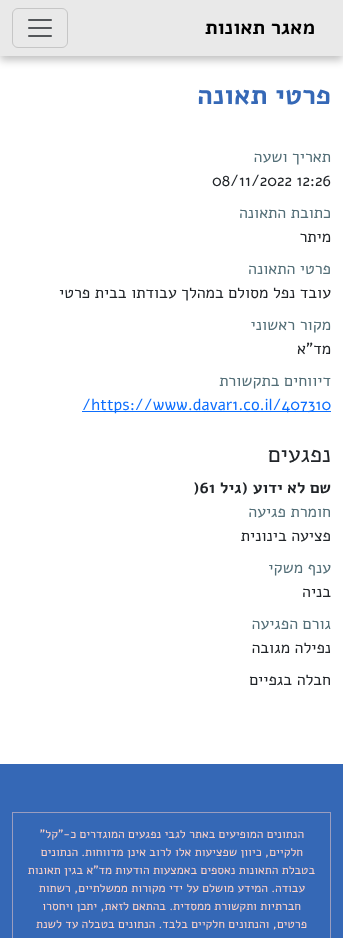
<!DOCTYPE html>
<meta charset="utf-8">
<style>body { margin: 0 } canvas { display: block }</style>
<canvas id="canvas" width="343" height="938"></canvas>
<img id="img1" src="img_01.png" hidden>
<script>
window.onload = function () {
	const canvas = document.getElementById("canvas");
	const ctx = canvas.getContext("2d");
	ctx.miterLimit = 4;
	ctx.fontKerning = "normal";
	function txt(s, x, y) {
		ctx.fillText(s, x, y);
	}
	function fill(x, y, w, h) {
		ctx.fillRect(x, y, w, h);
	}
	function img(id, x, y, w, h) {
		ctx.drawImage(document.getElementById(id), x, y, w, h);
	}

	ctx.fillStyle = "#FFFFFF";
	fill(0, 0, 343, 938);
	ctx.fillStyle = "rgba(0, 0, 0, 0.25)";
	ctx.filter = "blur(4px)";
	ctx.beginPath();
	ctx.rect(0, 4, 343, 56);
	ctx.fill();
	ctx.filter = "none";
	ctx.fillStyle = "#E9E9E9";
	fill(0, 0, 343, 56);
	ctx.beginPath();
	ctx.roundRect(12.5, 8.5, 55, 39, 5.5);
	ctx.strokeStyle = "#C6C6C6";
	ctx.stroke();
	img("img1", 28, 19, 24, 18);
	ctx.fillStyle = "#0D6EFD";
	fill(82, 411, 249, 1);
	ctx.fillStyle = "#3568B6";
	fill(0, 764, 343, 174);
	ctx.strokeStyle = "#9A9DBF";
	ctx.strokeRect(12.5, 812.5, 318, 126);
	ctx.direction = "rtl";
	ctx.font = "bold 20px Alef";
	ctx.fillStyle = "#000000";
	txt("מאגר תאונות", 315, 34);
	ctx.font = "bold 27px Alef";
	ctx.fillStyle = "#3568B6";
	txt("פרטי תאונה", 331, 104);
	ctx.font = "16px Alef";
	ctx.fillStyle = "#536E77";
	txt("תאריך ושעה", 331, 162);
	ctx.direction = "ltr";
	ctx.fillStyle = "#212529";
	txt("08/11/2022 12:26", 212, 186);
	ctx.direction = "rtl";
	ctx.fillStyle = "#536E77";
	txt("כתובת התאונה", 331, 218);
	ctx.fillStyle = "#212529";
	txt("מיתר", 331, 242);
	ctx.fillStyle = "#536E77";
	txt("פרטי התאונה", 331, 274);
	ctx.fillStyle = "#212529";
	txt("עובד נפל מסולם במהלך עבודתו בבית פרטי", 331, 298);
	ctx.fillStyle = "#536E77";
	txt("מקור ראשוני", 331, 330);
	ctx.fillStyle = "#212529";
	txt("מד\"א", 331, 354);
	ctx.fillStyle = "#536E77";
	txt("דיווחים בתקשורת", 331, 386);
	ctx.direction = "ltr";
	ctx.fillStyle = "#0D6EFD";
	txt("/https://www.davar1.co.il/407310", 82, 410);
	ctx.direction = "rtl";
	ctx.font = "23px Alef";
	ctx.fillStyle = "#212529";
	txt("נפגעים", 331, 462);
	ctx.font = "bold 16px Alef";
	txt("שם לא ידוע", 331, 493);
	txt("(גיל", 248, 493);
	ctx.direction = "ltr";
	txt(")61", 193, 493);
	ctx.direction = "rtl";
	ctx.font = "16px Alef";
	ctx.fillStyle = "#536E77";
	txt("חומרת פגיעה", 331, 517);
	ctx.fillStyle = "#212529";
	txt("פציעה בינונית", 331, 541);
	ctx.fillStyle = "#536E77";
	txt("ענף משקי", 331, 573);
	ctx.fillStyle = "#212529";
	txt("בניה", 331, 597);
	ctx.fillStyle = "#536E77";
	txt("גורם הפגיעה", 331, 629);
	ctx.fillStyle = "#212529";
	txt("נפילה מגובה", 331, 653);
	txt("חבלה בגפיים", 331, 685);
	ctx.font = "12px Alef";
	ctx.fillStyle = "#FFD2C8";
	txt("הנתונים המופיעים באתר לגבי נפגעים המוגדרים כ-\"קל\"", 304, 838);
	txt("חלקיים, כיוון שפציעות אלו לרוב אינן מדווחות.", 303, 856);
	txt("הנתונים", 78, 856);
	txt("בטבלת התאונות נאספים באמצעות הודעות מד\"א בגין תאונות", 315, 874);
	txt("עבודה. המידע מושלם על ידי מקורות ממשלתיים, רשתות", 305, 892);
	txt("חברתיות ותקשורת ממסדית. בהתאם לזאת, יתכן ויחסרו", 301, 910);
	txt("פרטים, והנתונים חלקיים בלבד. הנתונים בטבלה עד לשנת", 307, 928);
};
</script>
